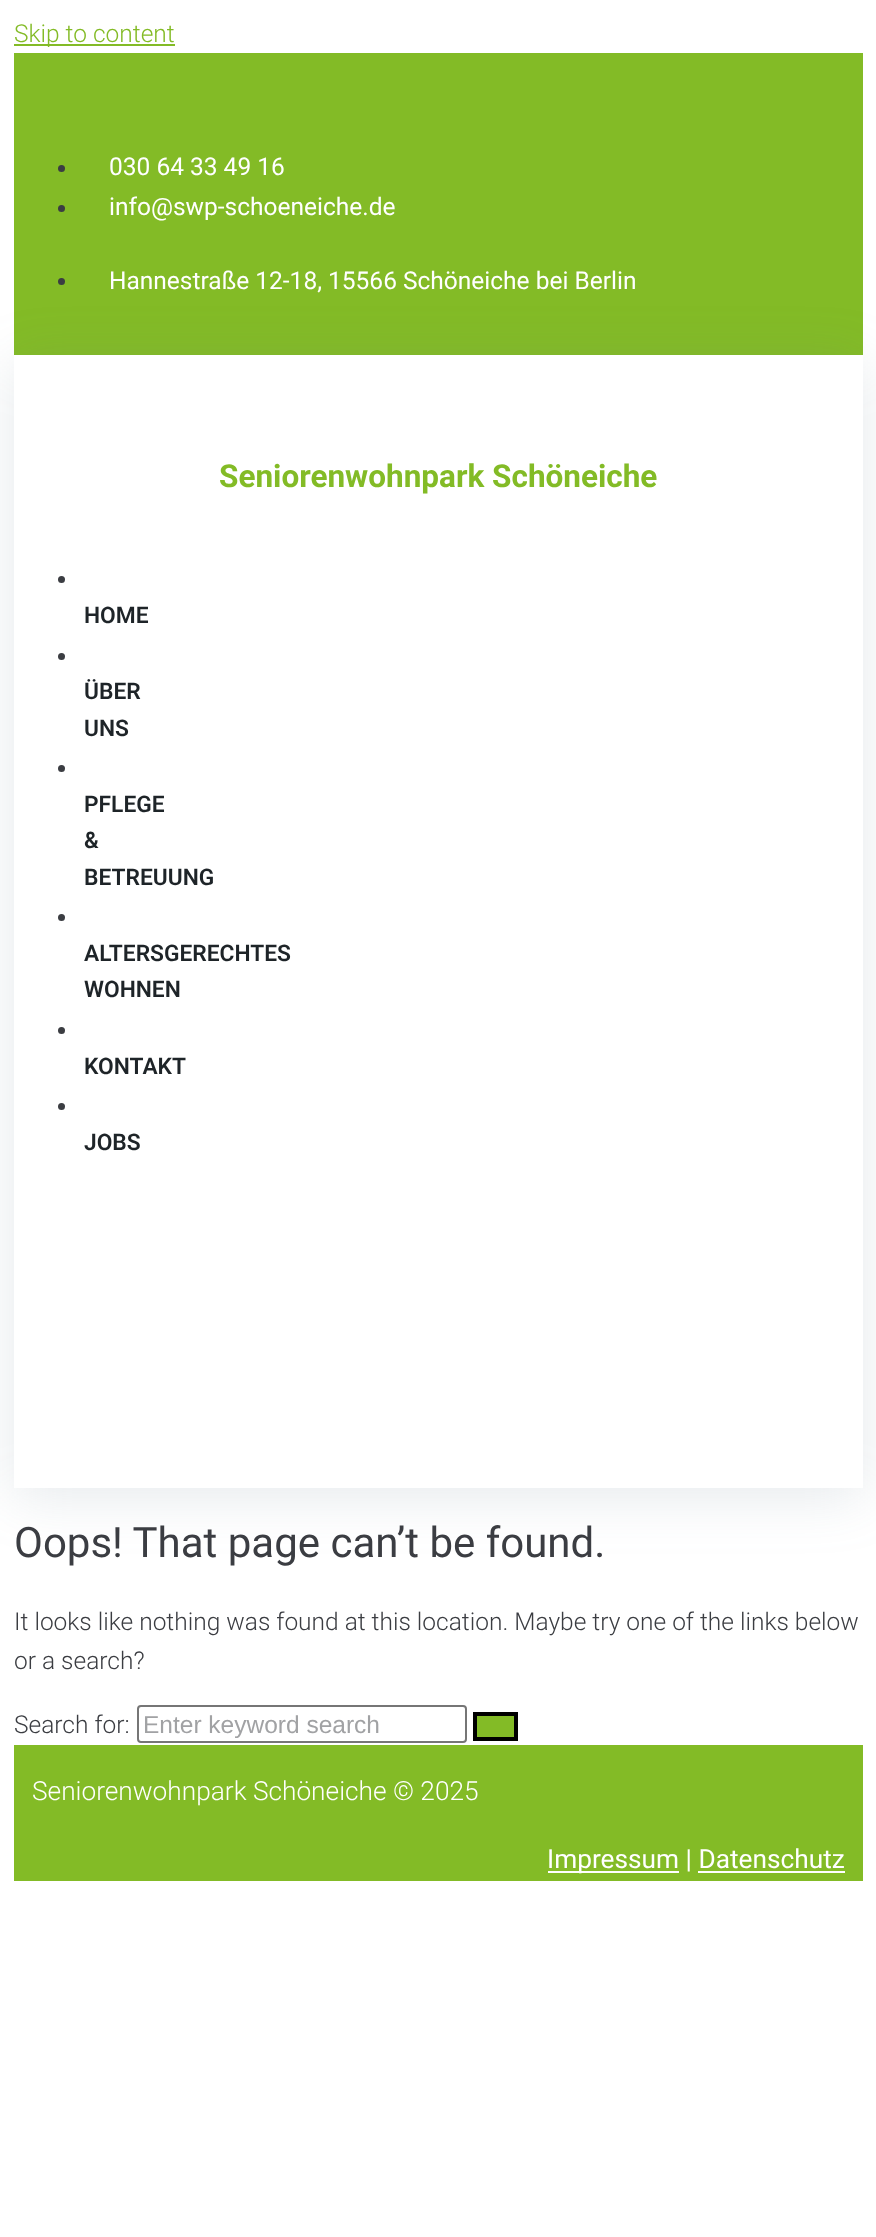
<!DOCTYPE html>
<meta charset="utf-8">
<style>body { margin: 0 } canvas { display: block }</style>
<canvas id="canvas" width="876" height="2237"></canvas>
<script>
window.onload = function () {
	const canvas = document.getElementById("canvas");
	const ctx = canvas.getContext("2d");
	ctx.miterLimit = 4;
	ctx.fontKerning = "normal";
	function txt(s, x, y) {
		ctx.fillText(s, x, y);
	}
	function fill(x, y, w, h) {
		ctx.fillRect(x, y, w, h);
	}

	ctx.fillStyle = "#FFFFFF";
	fill(0, 0, 876, 2237);
	ctx.fillStyle = "#83BB26";
	fill(14, 44, 161, 2);
	fill(14, 53, 849, 302);
	ctx.fillStyle = "#3B3D42";
	ctx.beginPath();
	ctx.arc(61.5, 168.5, 3.5, 0, Math.PI * 2);
	ctx.fill();
	ctx.beginPath();
	ctx.arc(61.5, 208.5, 3.5, 0, Math.PI * 2);
	ctx.fill();
	ctx.save();
	ctx.beginPath();
	ctx.moveTo(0, 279);
	ctx.lineTo(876, 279);
	ctx.lineTo(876, 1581);
	ctx.lineTo(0, 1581);
	ctx.closePath();
	ctx.moveTo(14, 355);
	ctx.lineTo(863, 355);
	ctx.lineTo(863, 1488);
	ctx.lineTo(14, 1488);
	ctx.closePath();
	ctx.clip("evenodd");
	ctx.fillStyle = "rgba(103, 122, 143, 0.17)";
	ctx.filter = "blur(28px)";
	ctx.beginPath();
	ctx.rect(14, 364, 849, 1132);
	ctx.fill();
	ctx.filter = "none";
	ctx.restore();
	ctx.beginPath();
	ctx.arc(61.5, 281.5, 3.5, 0, Math.PI * 2);
	ctx.fill();
	ctx.fillStyle = "rgba(255, 255, 255, 0.7)";
	fill(14, 1487, 849, 1);
	ctx.fillStyle = "#3B3D42";
	ctx.beginPath();
	ctx.arc(61.5, 579.5, 3.5, 0, Math.PI * 2);
	ctx.fill();
	ctx.beginPath();
	ctx.arc(61.5, 656.5, 3.5, 0, Math.PI * 2);
	ctx.fill();
	ctx.beginPath();
	ctx.arc(61.5, 768.5, 3.5, 0, Math.PI * 2);
	ctx.fill();
	ctx.beginPath();
	ctx.arc(61.5, 917.5, 3.5, 0, Math.PI * 2);
	ctx.fill();
	ctx.beginPath();
	ctx.arc(61.5, 1030.5, 3.5, 0, Math.PI * 2);
	ctx.fill();
	ctx.beginPath();
	ctx.arc(61.5, 1106.5, 3.5, 0, Math.PI * 2);
	ctx.fill();
	ctx.beginPath();
	ctx.roundRect(138, 1706, 328, 36, 3);
	ctx.strokeStyle = "#767676";
	ctx.lineWidth = 2;
	ctx.stroke();
	ctx.fillStyle = "#83BB26";
	ctx.beginPath();
	ctx.rect(475, 1714, 41, 25);
	ctx.fill();
	ctx.strokeStyle = "#000000";
	ctx.lineWidth = 4;
	ctx.stroke();
	fill(14, 1745, 849, 136);
	ctx.fillStyle = "#FFFFFF";
	fill(548, 1871, 131, 2);
	fill(698, 1871, 147, 2);
	ctx.font = "300 24.5px Roboto";
	ctx.fillStyle = "#83BB26";
	txt("Skip to content", 14, 42);
	ctx.font = "24.5px Roboto";
	ctx.fillStyle = "#FFFFFF";
	txt("030 64 33 49 16", 109, 175);
	txt("info@swp-schoeneiche.de", 109, 215);
	txt("Hannestraße 12-18, 15566 Schöneiche bei Berlin", 109, 289);
	ctx.font = "bold 31.5px Roboto";
	ctx.fillStyle = "#83BB26";
	txt("Seniorenwohnpark Schöneiche", 219, 487);
	ctx.font = "600 22.75px Roboto";
	ctx.fillStyle = "#1E2428";
	txt("HOME", 84, 623);
	txt("ÜBER", 84, 699);
	txt("UNS", 84, 736);
	txt("PFLEGE", 84, 812);
	txt("&", 84, 848);
	txt("BETREUUNG", 84, 885);
	txt("ALTERSGERECHTES", 84, 961);
	txt("WOHNEN", 84, 997);
	txt("KONTAKT", 84, 1074);
	txt("JOBS", 84, 1150);
	ctx.font = "42px Roboto";
	ctx.fillStyle = "#3B3D42";
	txt("Oops! That page can’t be found.", 14, 1557);
	ctx.font = "300 24.5px Roboto";
	txt("It looks like nothing was found at this location. Maybe try one of the links below", 14, 1630);
	txt("or a search?", 14, 1669);
	txt("Search for:", 14, 1733);
	ctx.font = "24.5px Liberation Sans";
	ctx.fillStyle = "#A1A2A4";
	txt("Enter keyword search", 143, 1733);
	ctx.font = "300 26.25px Roboto";
	ctx.fillStyle = "#FFFFFF";
	txt("Seniorenwohnpark Schöneiche © 2025", 32, 1800);
	ctx.font = "26.25px Roboto";
	txt("Impressum | Datenschutz", 547, 1868);
};
</script>
